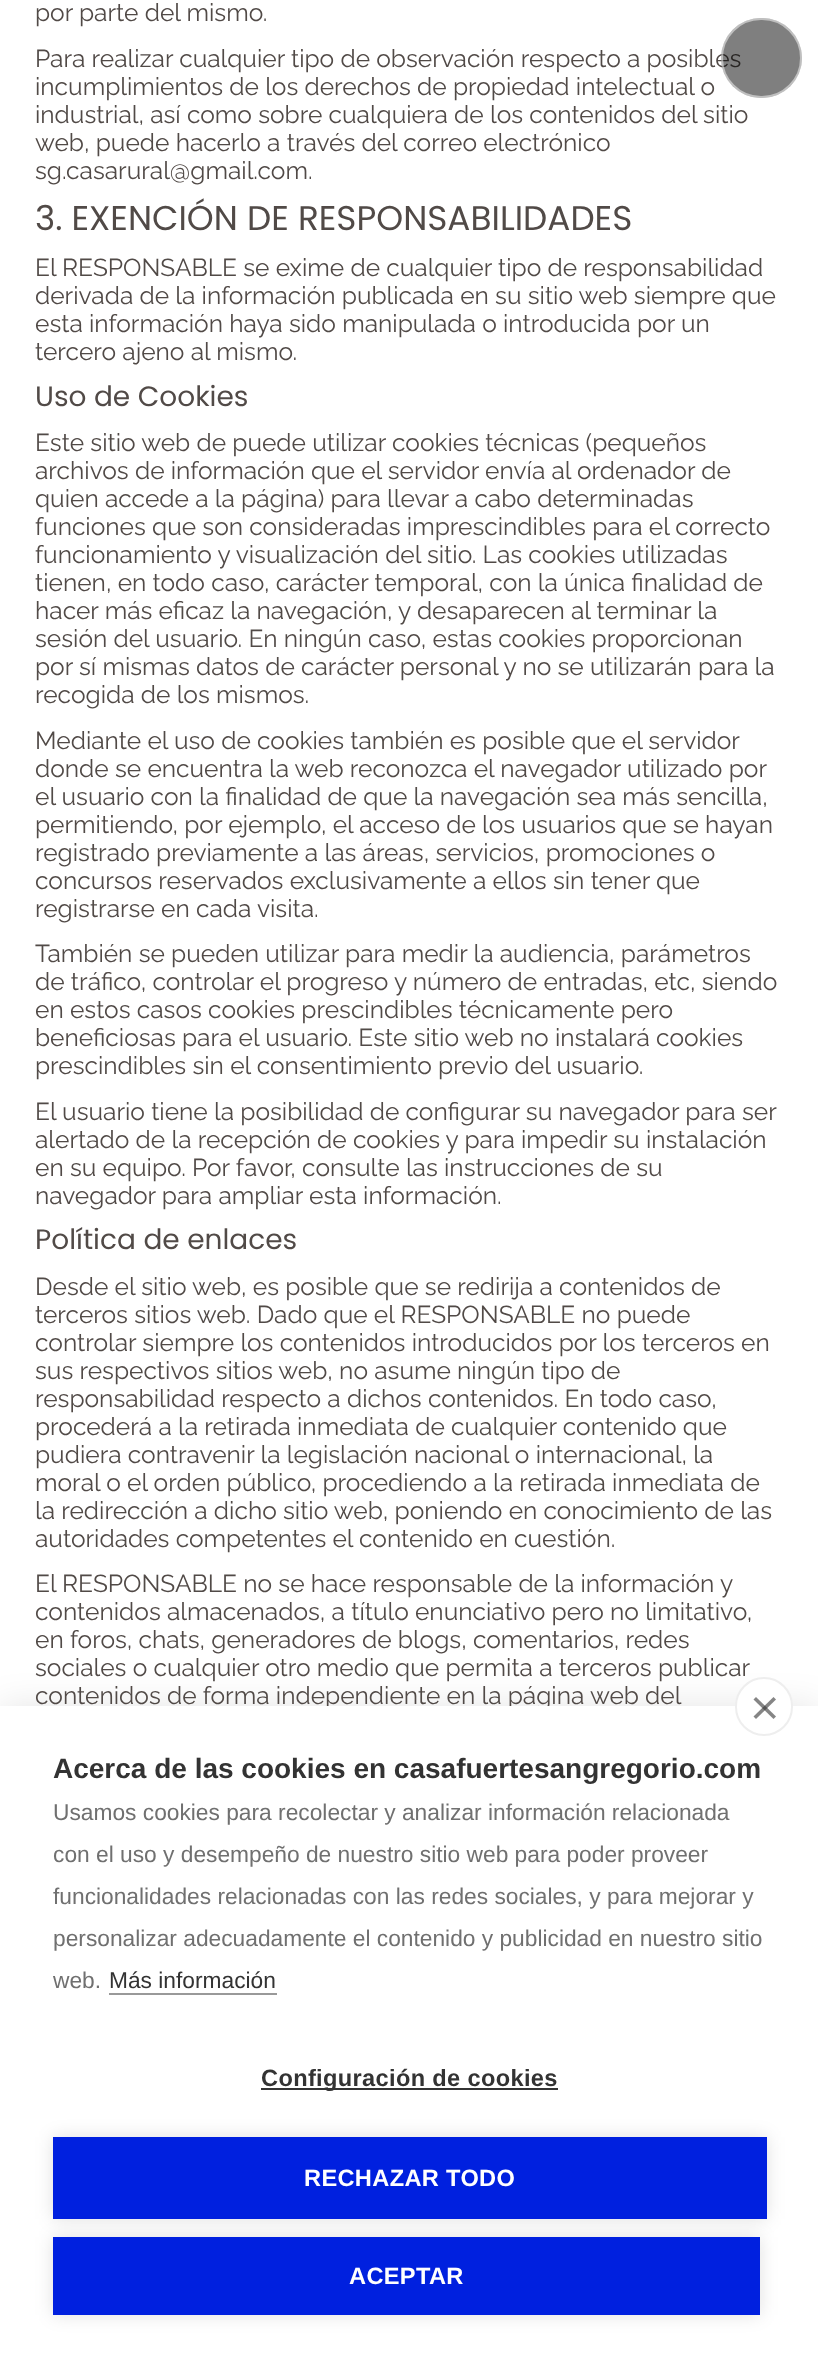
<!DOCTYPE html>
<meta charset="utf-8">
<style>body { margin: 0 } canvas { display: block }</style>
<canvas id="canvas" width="818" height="2358"></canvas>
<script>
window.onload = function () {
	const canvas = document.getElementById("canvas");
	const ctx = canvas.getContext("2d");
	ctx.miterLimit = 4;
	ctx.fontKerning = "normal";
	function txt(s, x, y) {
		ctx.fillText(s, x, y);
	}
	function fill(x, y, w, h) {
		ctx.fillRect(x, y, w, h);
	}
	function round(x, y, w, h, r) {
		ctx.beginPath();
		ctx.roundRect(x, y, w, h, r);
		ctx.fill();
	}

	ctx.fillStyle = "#FFFFFF";
	fill(0, 0, 818, 2358);
	ctx.fillStyle = "rgba(0, 0, 0, 0.1)";
	ctx.filter = "blur(17.5px)";
	ctx.beginPath();
	ctx.rect(0, 1706, 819, 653);
	ctx.fill();
	ctx.filter = "none";
	ctx.font = "24.5px Raleway";
	ctx.fillStyle = "#514A47";
	txt("por parte del mismo.", 35, 21);
	txt("Para realizar cualquier tipo de observación respecto a posibles", 35, 67);
	txt("incumplimientos de los derechos de propiedad intelectual o", 35, 95);
	txt("industrial, así como sobre cualquiera de los contenidos del sitio", 35, 123);
	txt("web, puede hacerlo a través del correo electrónico", 35, 151);
	txt("sg.casarural@gmail.com.", 35, 179);
	ctx.font = "34.25px Poppins";
	txt("3. EXENCIÓN DE RESPONSABILIDADES", 35, 230);
	ctx.font = "24.5px Raleway";
	txt("El RESPONSABLE se exime de cualquier tipo de responsabilidad", 35, 276);
	txt("derivada de la información publicada en su sitio web siempre que", 35, 304);
	txt("esta información haya sido manipulada o introducida por un", 35, 332);
	txt("tercero ajeno al mismo.", 35, 360);
	ctx.font = "28px Poppins";
	txt("Uso de Cookies", 35, 406);
	ctx.font = "24.5px Raleway";
	txt("Este sitio web de puede utilizar cookies técnicas (pequeños", 35, 451);
	txt("archivos de información que el servidor envía al ordenador de", 35, 479);
	txt("quien accede a la página) para llevar a cabo determinadas", 35, 507);
	txt("funciones que son consideradas imprescindibles para el correcto", 35, 535);
	txt("funcionamiento y visualización del sitio. Las cookies utilizadas", 35, 563);
	txt("tienen, en todo caso, carácter temporal, con la única finalidad de", 35, 591);
	txt("hacer más eficaz la navegación, y desaparecen al terminar la", 35, 619);
	txt("sesión del usuario. En ningún caso, estas cookies proporcionan", 35, 647);
	txt("por sí mismas datos de carácter personal y no se utilizarán para la", 35, 675);
	txt("recogida de los mismos.", 35, 703);
	txt("Mediante el uso de cookies también es posible que el servidor", 35, 749);
	txt("donde se encuentra la web reconozca el navegador utilizado por", 35, 777);
	txt("el usuario con la finalidad de que la navegación sea más sencilla,", 35, 805);
	txt("permitiendo, por ejemplo, el acceso de los usuarios que se hayan", 35, 833);
	txt("registrado previamente a las áreas, servicios, promociones o", 35, 861);
	txt("concursos reservados exclusivamente a ellos sin tener que", 35, 889);
	txt("registrarse en cada visita.", 35, 917);
	txt("También se pueden utilizar para medir la audiencia, parámetros", 35, 962);
	txt("de tráfico, controlar el progreso y número de entradas, etc, siendo", 35, 990);
	txt("en estos casos cookies prescindibles técnicamente pero", 35, 1018);
	txt("beneficiosas para el usuario. Este sitio web no instalará cookies", 35, 1046);
	txt("prescindibles sin el consentimiento previo del usuario.", 35, 1074);
	txt("El usuario tiene la posibilidad de configurar su navegador para ser", 35, 1120);
	txt("alertado de la recepción de cookies y para impedir su instalación", 35, 1148);
	txt("en su equipo. Por favor, consulte las instrucciones de su", 35, 1176);
	txt("navegador para ampliar esta información.", 35, 1204);
	ctx.font = "28px Poppins";
	txt("Política de enlaces", 35, 1249);
	ctx.font = "24.5px Raleway";
	txt("Desde el sitio web, es posible que se redirija a contenidos de", 35, 1295);
	txt("terceros sitios web. Dado que el RESPONSABLE no puede", 35, 1323);
	txt("controlar siempre los contenidos introducidos por los terceros en", 35, 1351);
	txt("sus respectivos sitios web, no asume ningún tipo de", 35, 1379);
	txt("responsabilidad respecto a dichos contenidos. En todo caso,", 35, 1407);
	txt("procederá a la retirada inmediata de cualquier contenido que", 35, 1435);
	txt("pudiera contravenir la legislación nacional o internacional, la", 35, 1463);
	txt("moral o el orden público, procediendo a la retirada inmediata de", 35, 1491);
	txt("la redirección a dicho sitio web, poniendo en conocimiento de las", 35, 1519);
	txt("autoridades competentes el contenido en cuestión.", 35, 1547);
	txt("El RESPONSABLE no se hace responsable de la información y", 35, 1592);
	txt("contenidos almacenados, a título enunciativo pero no limitativo,", 35, 1620);
	txt("en foros, chats, generadores de blogs, comentarios, redes", 35, 1648);
	txt("sociales o cualquier otro medio que permita a terceros publicar", 35, 1676);
	txt("contenidos de forma independiente en la página web del", 35, 1704);
	ctx.fillStyle = "rgba(0, 0, 0, 0.5)";
	round(721, 18, 81, 80, 40);
	ctx.beginPath();
	ctx.roundRect(722, 19, 79, 78, 39);
	ctx.strokeStyle = "rgba(255, 255, 255, 0.5)";
	ctx.lineWidth = 2;
	ctx.stroke();
	ctx.fillStyle = "#FFFFFF";
	fill(0, 1706, 818, 652);
	ctx.beginPath();
	ctx.roundRect(736, 1678, 56, 57, 28);
	ctx.fill();
	ctx.strokeStyle = "#EEEEEE";
	ctx.stroke();
	ctx.fillStyle = "#858585";
	ctx.beginPath();
	ctx.moveTo(753.5, 1716.5);
	ctx.lineTo(773.5, 1697);
	ctx.lineTo(776, 1699.5);
	ctx.lineTo(756, 1719);
	ctx.closePath();
	ctx.fill();
	ctx.fillStyle = "rgba(51, 51, 51, 0.6)";
	ctx.beginPath();
	ctx.moveTo(756, 1697);
	ctx.lineTo(776, 1716.5);
	ctx.lineTo(773.5, 1719);
	ctx.lineTo(753.5, 1699.5);
	ctx.closePath();
	ctx.fill();
	ctx.font = "bold 28px Liberation Sans";
	ctx.fillStyle = "#333333";
	txt("Acerca de las cookies en casafuertesangregorio.com", 53, 1778);
	ctx.font = "22.75px Liberation Sans";
	ctx.fillStyle = "#707070";
	txt("Usamos cookies para recolectar y analizar información relacionada", 53, 1820);
	txt("con el uso y desempeño de nuestro sitio web para poder proveer", 53, 1862);
	txt("funcionalidades relacionadas con las redes sociales, y para mejorar y", 53, 1904);
	txt("personalizar adecuadamente el contenido y publicidad en nuestro sitio", 53, 1946);
	txt("web.", 53, 1988);
	ctx.fillStyle = "#333333";
	txt("Más información", 109, 1988);
	ctx.fillStyle = "#999999";
	fill(109, 1993, 168, 2);
	ctx.fillStyle = "#333333";
	fill(261, 2088, 297, 2);
	ctx.letterSpacing = "0.35px";
	ctx.font = "bold 23.6px Liberation Sans";
	txt("Configuración de cookies", 261, 2086);
	ctx.fillStyle = "rgba(0, 0, 0, 0.12)";
	ctx.filter = "blur(9px)";
	ctx.beginPath();
	ctx.rect(53, 2137, 714, 82);
	ctx.fill();
	ctx.filter = "none";
	ctx.fillStyle = "#0020DF";
	fill(53, 2137, 714, 82);
	ctx.fillStyle = "#FFFFFF";
	txt("RECHAZAR TODO", 304, 2186);
	ctx.fillStyle = "rgba(0, 0, 0, 0.12)";
	ctx.filter = "blur(9px)";
	ctx.beginPath();
	ctx.rect(53, 2237, 707, 78);
	ctx.fill();
	ctx.filter = "none";
	ctx.fillStyle = "#0020DF";
	fill(53, 2237, 707, 78);
	ctx.fillStyle = "#FFFFFF";
	txt("ACEPTAR", 349, 2284);
};
</script>
